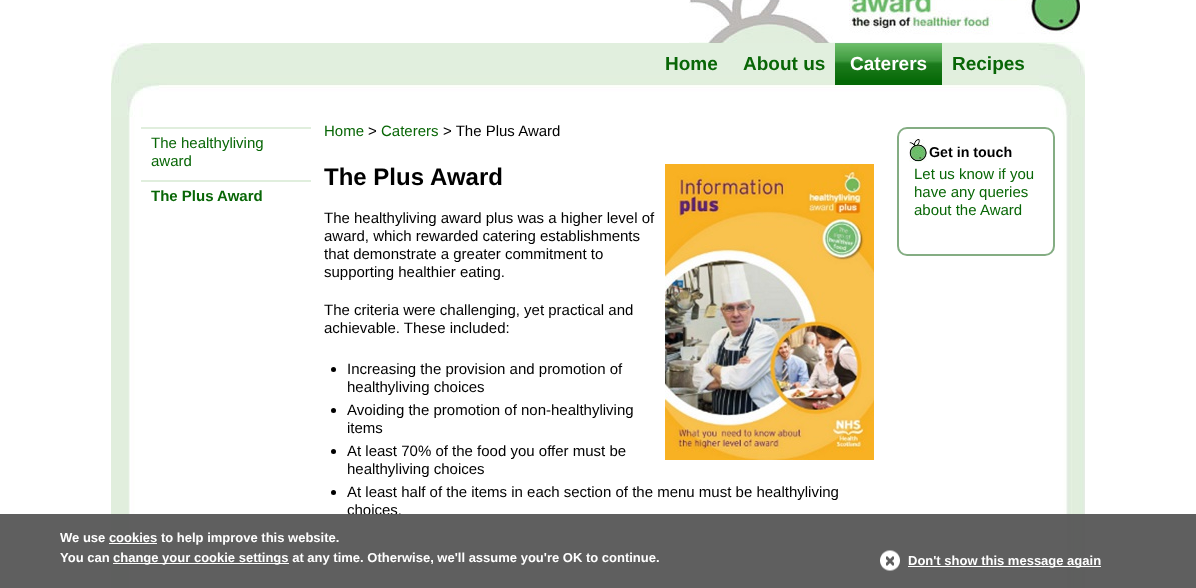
<!DOCTYPE html>
<meta charset="utf-8">
<style>body { margin: 0 } canvas { display: block }</style>
<canvas id="canvas" width="1196" height="588"></canvas>
<img id="img1" src="img_01.png" hidden>
<img id="img2" src="img_02.png" hidden>
<img id="img3" src="img_03.png" hidden>
<img id="img4" src="img_04.png" hidden>
<img id="img5" src="img_05.png" hidden>
<img id="img6" src="img_06.png" hidden>
<img id="img7" src="img_07.png" hidden>
<script>
window.onload = function () {
	const canvas = document.getElementById("canvas");
	const ctx = canvas.getContext("2d");
	ctx.miterLimit = 4;
	ctx.fontKerning = "normal";
	function txt(s, x, y) {
		ctx.fillText(s, x, y);
	}
	function fill(x, y, w, h) {
		ctx.fillRect(x, y, w, h);
	}
	function img(id, x, y, w, h) {
		ctx.drawImage(document.getElementById(id), x, y, w, h);
	}

	ctx.fillStyle = "#FFFFFF";
	fill(0, 0, 1196, 588);
	img("img1", 689, 0, 391, 43);
	img("img2", 111, 43, 974, 74);
	ctx.fillStyle = "#036704";
	fill(835, 80, 107, 5);
	img("img3", 835, 43, 107, 37);
	img("img4", 111, 117, 974, 471);
	ctx.fillStyle = "#E0EEDD";
	fill(141, 127, 170, 2);
	fill(141, 180, 170, 2);
	img("img5", 665, 164, 209, 296);
	ctx.fillStyle = "#000000";
	ctx.beginPath();
	ctx.arc(333.5, 369.5, 2.5, 0, Math.PI * 2);
	ctx.fill();
	ctx.beginPath();
	ctx.arc(333.5, 410.5, 2.5, 0, Math.PI * 2);
	ctx.fill();
	ctx.beginPath();
	ctx.arc(333.5, 451.5, 2.5, 0, Math.PI * 2);
	ctx.fill();
	ctx.beginPath();
	ctx.arc(333.5, 492.5, 2.5, 0, Math.PI * 2);
	ctx.fill();
	ctx.beginPath();
	ctx.roundRect(898, 128, 156, 127, 9);
	ctx.strokeStyle = "#84AD83";
	ctx.lineWidth = 2;
	ctx.stroke();
	img("img6", 909, 139, 18, 23);
	ctx.font = "bold 19px Liberation Sans";
	ctx.fillStyle = "#086606";
	txt("Home", 665, 70);
	txt("About us", 743, 70);
	ctx.fillStyle = "#FFFFFF";
	txt("Caterers", 850, 70);
	ctx.fillStyle = "#086606";
	txt("Recipes", 952, 70);
	ctx.font = "15px Liberation Sans";
	txt("The healthyliving", 151, 148);
	txt("award", 151, 166);
	ctx.font = "bold 15px Liberation Sans";
	txt("The Plus Award", 151, 201);
	ctx.font = "15px Liberation Sans";
	txt("Home", 324, 136);
	ctx.fillStyle = "#000000";
	txt(">", 368, 136);
	ctx.fillStyle = "#086606";
	txt("Caterers", 381, 136);
	ctx.fillStyle = "#000000";
	txt("> The Plus Award", 443, 136);
	ctx.font = "bold 24px Liberation Sans";
	txt("The Plus", 324, 185);
	txt("Award", 430, 185);
	ctx.font = "15px Liberation Sans";
	txt("The healthyliving award plus was a higher level of", 324, 223);
	txt("award, which rewarded catering establishments", 324, 241);
	txt("that demonstrate a greater commitment to", 324, 259);
	txt("supporting healthier eating.", 324, 277);
	txt("The criteria were challenging, yet practical and", 324, 315);
	txt("achievable. These included:", 324, 333);
	txt("Increasing the provision and promotion of", 347, 374);
	txt("healthyliving choices", 347, 392);
	txt("Avoiding the promotion of non-healthyliving", 347, 415);
	txt("items", 347, 433);
	txt("At least 70% of the food you offer must be", 347, 456);
	txt("healthyliving choices", 347, 474);
	txt("At least half of the items in each section of the menu must be healthyliving", 347, 497);
	txt("choices.", 347, 515);
	ctx.font = "bold 14.25px Liberation Sans";
	txt("Get in touch", 929, 157);
	ctx.font = "15px Liberation Sans";
	ctx.fillStyle = "#086606";
	txt("Let us know if you", 914, 179);
	txt("have any queries", 914, 197);
	txt("about the Award", 914, 215);
	ctx.fillStyle = "rgba(86, 86, 86, 0.95)";
	fill(0, 514, 1196, 74);
	ctx.font = "bold 13px Liberation Sans";
	ctx.fillStyle = "#FFFFFF";
	txt("We use cookies to help improve this website.", 60, 542);
	fill(109, 543, 48, 1);
	txt("You can", 60, 562);
	fill(113, 563, 176, 1);
	txt("change your cookie settings at any time. Otherwise, we'll assume you're OK to continue.", 113, 562);
	img("img7", 880, 550, 20, 21);
	fill(908, 566, 193, 1);
	txt("Don't show this message again", 908, 565);
};
</script>
